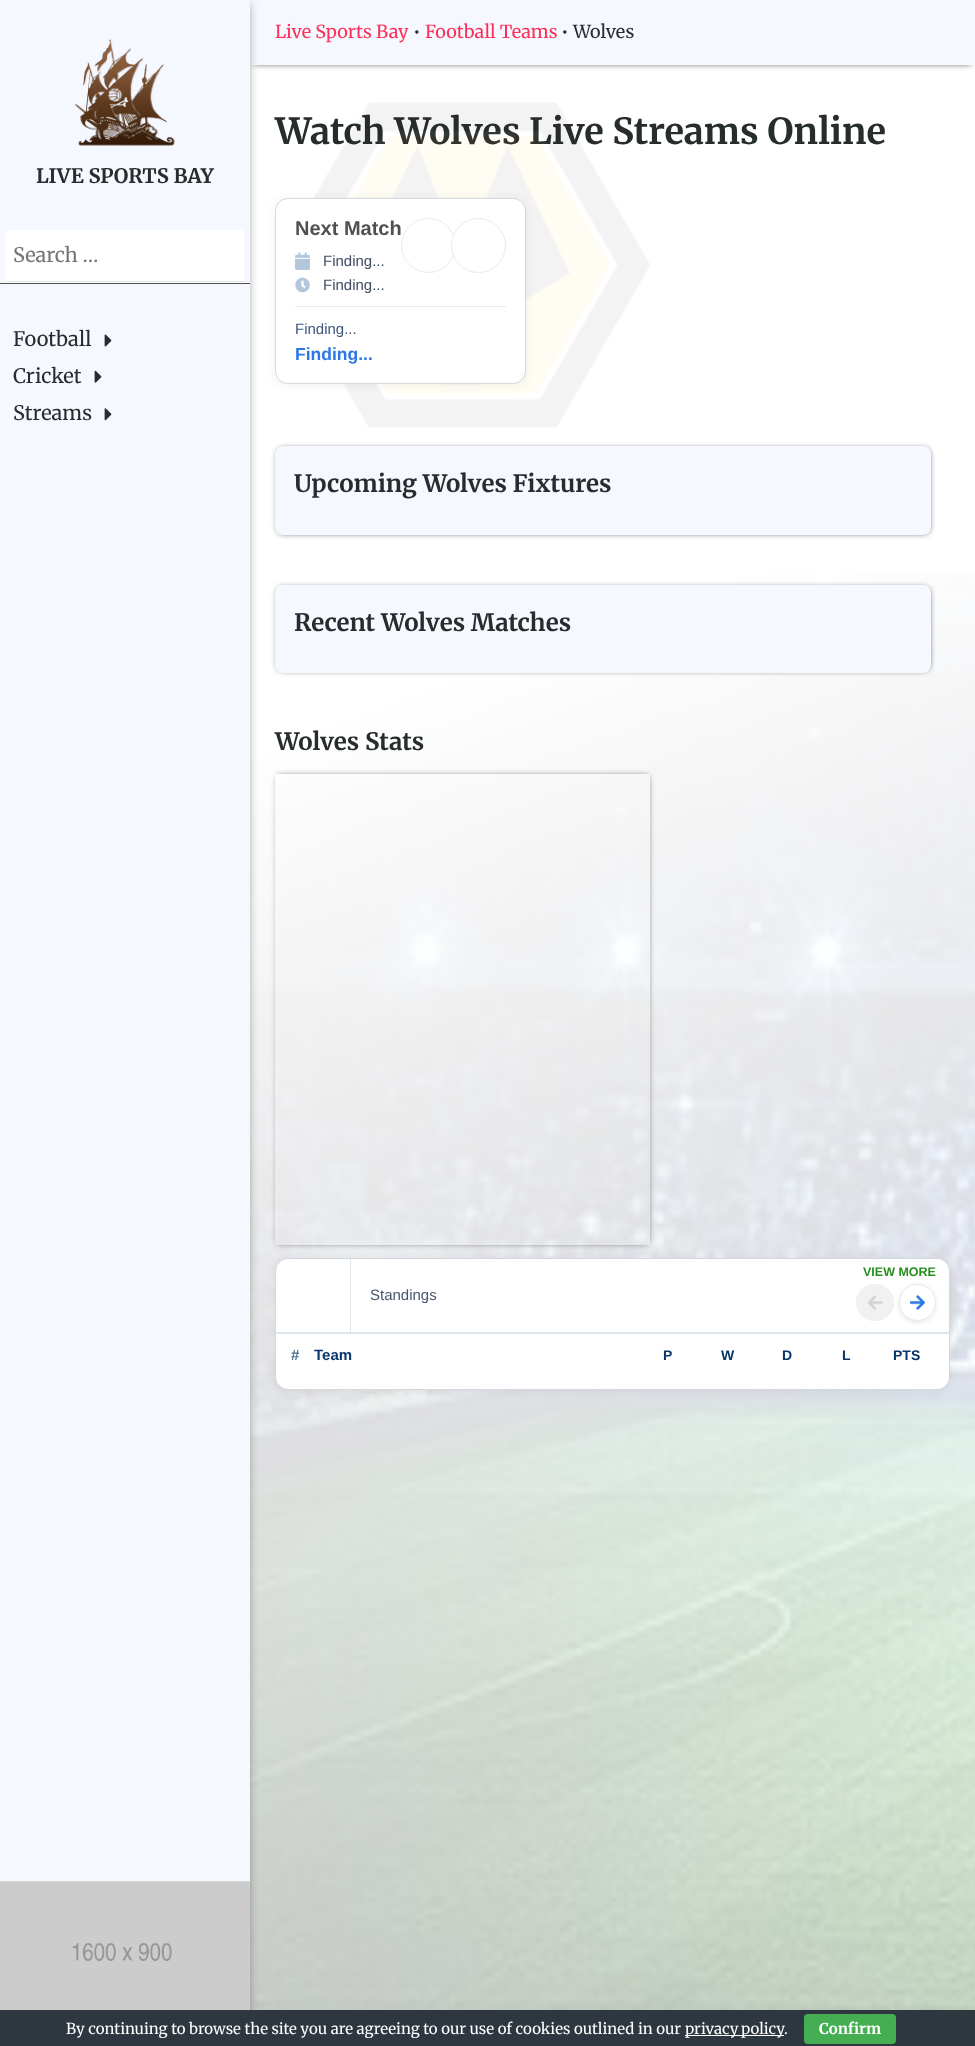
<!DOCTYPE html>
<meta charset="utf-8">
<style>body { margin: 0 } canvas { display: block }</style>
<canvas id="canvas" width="975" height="2046"></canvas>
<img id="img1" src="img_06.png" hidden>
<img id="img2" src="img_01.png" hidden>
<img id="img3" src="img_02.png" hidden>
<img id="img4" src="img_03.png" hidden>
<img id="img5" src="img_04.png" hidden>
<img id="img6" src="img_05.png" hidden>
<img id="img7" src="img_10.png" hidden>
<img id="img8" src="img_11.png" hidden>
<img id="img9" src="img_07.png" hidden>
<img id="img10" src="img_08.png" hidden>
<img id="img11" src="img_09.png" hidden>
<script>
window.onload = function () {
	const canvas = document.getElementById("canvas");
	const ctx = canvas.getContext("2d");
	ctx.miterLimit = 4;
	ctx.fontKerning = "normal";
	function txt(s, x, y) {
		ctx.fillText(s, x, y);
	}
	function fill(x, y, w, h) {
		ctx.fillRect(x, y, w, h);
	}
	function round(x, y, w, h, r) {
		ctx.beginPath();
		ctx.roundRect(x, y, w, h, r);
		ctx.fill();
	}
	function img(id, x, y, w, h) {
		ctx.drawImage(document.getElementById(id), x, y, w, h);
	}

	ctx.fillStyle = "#FFFFFF";
	fill(0, 0, 975, 2046);
	ctx.fillStyle = "#50514F";
	ctx.filter = "blur(3px)";
	ctx.beginPath();
	ctx.rect(254, 6, 717, 58);
	ctx.fill();
	ctx.filter = "none";
	ctx.fillStyle = "#F6F8FF";
	fill(250, 0, 725, 65);
	img("img1", 250, 572, 725, 1438);
	ctx.fillStyle = "#50514F";
	ctx.filter = "blur(6px)";
	ctx.beginPath();
	ctx.rect(4, 4, 242, 2039);
	ctx.fill();
	ctx.filter = "none";
	ctx.fillStyle = "#F6F8FF";
	fill(0, 0, 250, 1882);
	img("img2", 74, 39, 101, 107);
	ctx.fillStyle = "#50514F";
	fill(0, 283, 250, 1);
	ctx.fillStyle = "#FFFFFF";
	ctx.beginPath();
	ctx.roundRect(6, 230, 238, 53, [4, 4, 0, 0]);
	ctx.fill();
	ctx.fillStyle = "#E1E1E1";
	fill(6, 281, 238, 1);
	img("img3", 104, 334, 8, 13);
	img("img4", 94, 370, 8, 13);
	img("img5", 104, 408, 8, 13);
	img("img6", 0, 1881, 250, 129);
	ctx.fillStyle = "#272D2D";
	ctx.filter = "blur(3px)";
	ctx.beginPath();
	ctx.roundRect(278, 449, 651, 84, 5);
	ctx.fill();
	ctx.filter = "none";
	ctx.fillStyle = "#F6F8FF";
	round(275, 446, 656, 89, 8);
	ctx.fillStyle = "#272D2D";
	ctx.filter = "blur(3px)";
	ctx.beginPath();
	ctx.roundRect(278, 588, 651, 82, 5);
	ctx.fill();
	ctx.filter = "none";
	ctx.fillStyle = "#F6F8FF";
	round(275, 585, 656, 88, 8);
	ctx.save();
	ctx.beginPath();
	ctx.moveTo(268, 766);
	ctx.lineTo(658, 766);
	ctx.lineTo(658, 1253);
	ctx.lineTo(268, 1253);
	ctx.closePath();
	ctx.moveTo(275, 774);
	ctx.lineTo(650, 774);
	ctx.lineTo(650, 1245);
	ctx.lineTo(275, 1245);
	ctx.closePath();
	ctx.clip("evenodd");
	ctx.fillStyle = "#50514F";
	ctx.filter = "blur(3px)";
	ctx.beginPath();
	ctx.rect(278, 776, 370, 467);
	ctx.fill();
	ctx.filter = "none";
	ctx.restore();
	ctx.fillStyle = "rgba(0, 0, 0, 0.06)";
	ctx.filter = "blur(5px)";
	ctx.beginPath();
	ctx.roundRect(275, 1259, 675, 132, 13);
	ctx.fill();
	ctx.filter = "none";
	ctx.fillStyle = "#FFFFFF";
	ctx.beginPath();
	ctx.roundRect(275.5, 1258.5, 674, 131, 12.5);
	ctx.fill();
	ctx.strokeStyle = "#D4D9DF";
	ctx.stroke();
	ctx.fillStyle = "rgba(58, 94, 141, 0.16)";
	fill(276, 1332, 673, 2);
	ctx.fillStyle = "#E0E6ED";
	fill(350, 1259, 1, 75);
	ctx.fillStyle = "#F1F1F1";
	round(856, 1284, 38, 37, 18.5);
	img("img7", 867, 1295, 16, 15);
	ctx.beginPath();
	ctx.roundRect(856.5, 1284.5, 37, 36, 18);
	ctx.strokeStyle = "#F1F1F1";
	ctx.stroke();
	ctx.fillStyle = "rgba(0, 0, 0, 0.09)";
	ctx.filter = "blur(2.5px)";
	ctx.beginPath();
	ctx.roundRect(899, 1285, 37, 38, 18.5);
	ctx.fill();
	ctx.filter = "none";
	ctx.fillStyle = "#FFFFFF";
	ctx.beginPath();
	ctx.arc(917.5, 1302.5, 18.5, 0, Math.PI * 2);
	ctx.fill();
	img("img8", 910, 1295, 15, 15);
	ctx.beginPath();
	ctx.arc(917.5, 1302.5, 18, 0, Math.PI * 2);
	ctx.strokeStyle = "#E0E9F4";
	ctx.stroke();
	ctx.fillStyle = "#2E363F";
	fill(0, 2010, 975, 36);
	ctx.fillStyle = "#FFFFFF";
	fill(685, 2035, 99, 1);
	ctx.fillStyle = "#45AE52";
	round(804, 2014, 92, 30, 4);
	ctx.font = "bold 20px Merriweather";
	ctx.fillStyle = "#272D2D";
	txt("LIVE SPORTS BAY", 36, 183);
	ctx.font = "20px Merriweather";
	ctx.fillStyle = "#757575";
	txt("Search …", 13, 262);
	ctx.fillStyle = "#272D2D";
	txt("Football", 13, 346);
	txt("Cricket", 13, 383);
	txt("Streams", 13, 420);
	ctx.font = "18px Merriweather";
	ctx.fillStyle = "#FD2E58";
	txt("Live Sports Bay", 275, 38);
	ctx.fillStyle = "#272D2D";
	txt("•", 413, 38);
	ctx.fillStyle = "#FD2E58";
	txt("Football Teams", 425, 38);
	ctx.fillStyle = "#272D2D";
	txt("• Wolves", 561, 38);
	ctx.font = "bold 36px Merriweather";
	txt("Watch Wolves Live Streams Online", 275, 144);
	img("img9", 314, 102, 336, 326);
	ctx.fillStyle = "rgba(0, 0, 0, 0.06)";
	ctx.filter = "blur(5px)";
	ctx.beginPath();
	ctx.roundRect(275, 199, 251, 186, 13);
	ctx.fill();
	ctx.filter = "none";
	ctx.fillStyle = "#FFFFFF";
	ctx.beginPath();
	ctx.roundRect(275.5, 198.5, 250, 185, 12.5);
	ctx.fill();
	ctx.strokeStyle = "#D4D9DF";
	ctx.stroke();
	ctx.font = "bold 20px Liberation Sans";
	ctx.fillStyle = "#50514F";
	txt("Next Match", 295, 235);
	img("img10", 295, 252, 15, 18);
	ctx.font = "15px Liberation Sans";
	ctx.fillStyle = "#404C63";
	txt("Finding...", 323, 266);
	img("img11", 295, 277, 15, 16);
	txt("Finding...", 323, 290);
	ctx.beginPath();
	ctx.arc(428.5, 245.5, 27, 0, Math.PI * 2);
	ctx.strokeStyle = "#EAEAEA";
	ctx.stroke();
	ctx.fillStyle = "#FFFFFF";
	ctx.beginPath();
	ctx.arc(478.5, 245.5, 27, 0, Math.PI * 2);
	ctx.fill();
	ctx.stroke();
	ctx.fillStyle = "#EAEAEA";
	fill(295, 306, 211, 1);
	ctx.fillStyle = "#3D567C";
	txt("Finding...", 295, 334);
	ctx.font = "bold 17.5px Liberation Sans";
	ctx.fillStyle = "#2C78E7";
	txt("Finding...", 295, 360);
	ctx.font = "bold 24px Merriweather";
	ctx.fillStyle = "#272D2D";
	txt("Upcoming Wolves Fixtures", 294, 492);
	txt("Recent Wolves Matches", 294, 631);
	txt("Wolves Stats", 275, 750);
	ctx.font = "bold 12.5px Liberation Sans";
	ctx.fillStyle = "#278E20";
	txt("VIEW MORE", 863, 1276);
	ctx.font = "15px Liberation Sans";
	ctx.fillStyle = "#47576E";
	txt("Standings", 370, 1300);
	ctx.font = "bold 15px Liberation Sans";
	ctx.fillStyle = "#497591";
	txt("#", 291, 1360);
	ctx.fillStyle = "#08366B";
	txt("Team", 314, 1360);
	ctx.font = "bold 14px Liberation Sans";
	txt("P", 663, 1360);
	txt("W", 721, 1360);
	txt("D", 782, 1360);
	txt("L", 842, 1360);
	txt("PTS", 893, 1360);
	ctx.font = "15px Merriweather";
	ctx.fillStyle = "#FFFFFF";
	txt("By continuing to browse the site you are agreeing to our use of cookies outlined in our", 66, 2034);
	ctx.wordSpacing = "-1px";
	txt("privacy policy", 685, 2034);
	ctx.wordSpacing = "0px";
	txt(".", 784, 2034);
	ctx.font = "bold 15px Merriweather";
	txt("Confirm", 819, 2034);
};
</script>
